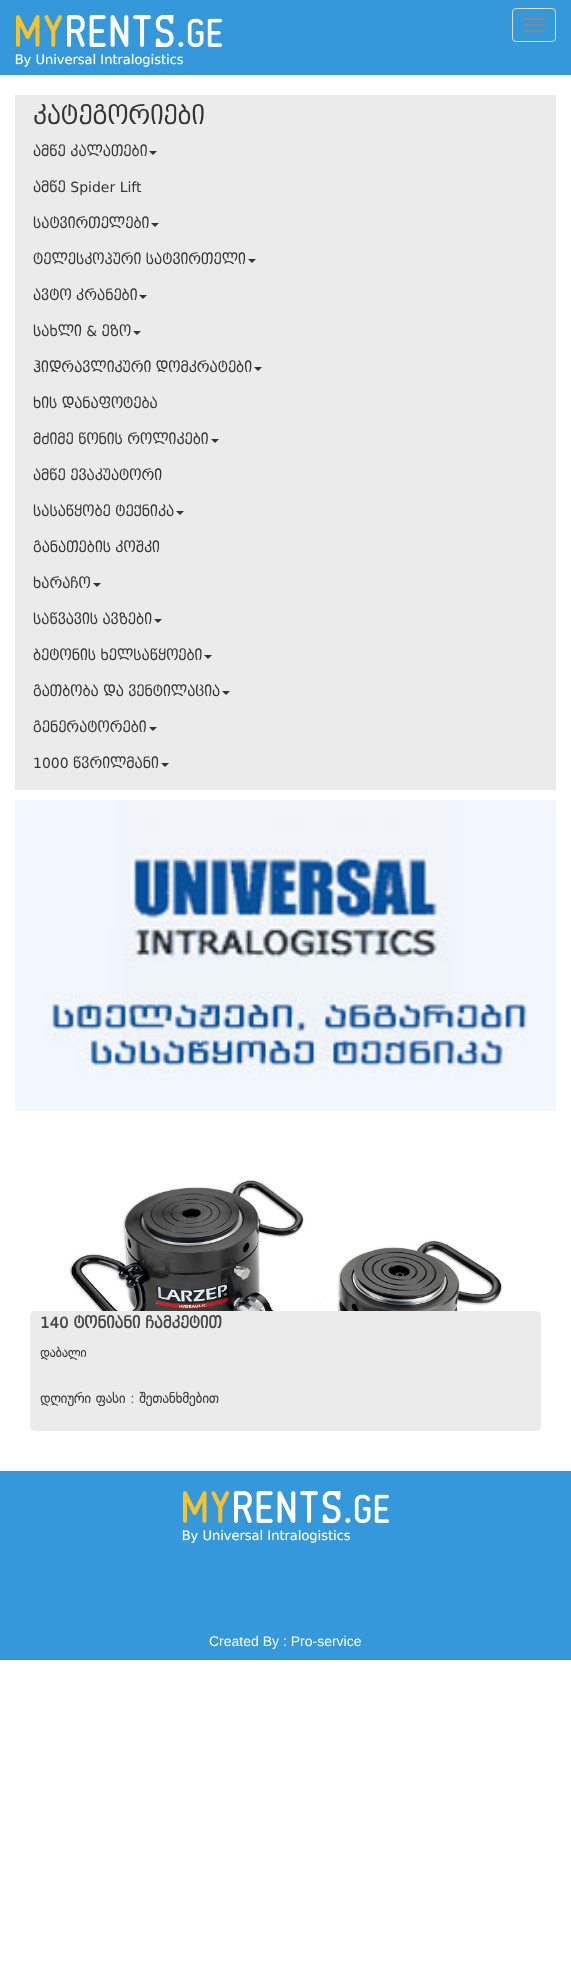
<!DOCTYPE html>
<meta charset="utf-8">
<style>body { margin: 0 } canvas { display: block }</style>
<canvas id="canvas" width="571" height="1964"></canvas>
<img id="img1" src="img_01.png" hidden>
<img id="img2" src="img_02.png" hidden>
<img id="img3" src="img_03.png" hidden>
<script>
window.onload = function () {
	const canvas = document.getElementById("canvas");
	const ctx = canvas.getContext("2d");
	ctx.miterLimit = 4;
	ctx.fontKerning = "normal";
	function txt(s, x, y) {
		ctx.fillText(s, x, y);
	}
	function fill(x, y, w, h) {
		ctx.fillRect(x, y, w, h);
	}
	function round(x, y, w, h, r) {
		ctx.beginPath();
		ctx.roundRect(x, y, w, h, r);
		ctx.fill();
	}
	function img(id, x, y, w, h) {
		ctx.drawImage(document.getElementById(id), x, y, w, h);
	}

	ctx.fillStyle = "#FFFFFF";
	fill(0, 0, 571, 1964);
	ctx.fillStyle = "#3498DB";
	fill(0, 0, 571, 75);
	img("img1", 15, 15, 207, 52);
	ctx.beginPath();
	ctx.roundRect(512.5, 8.5, 43, 33, 3.5);
	ctx.strokeStyle = "#DDDDDD";
	ctx.stroke();
	ctx.fillStyle = "#888888";
	round(523, 18, 22, 2, 1);
	round(523, 24, 22, 2, 1);
	round(523, 30, 22, 2, 1);
	ctx.fillStyle = "#EBEBEB";
	fill(15, 95, 541, 695);
	ctx.fillStyle = "#343434";
	ctx.beginPath();
	ctx.moveTo(149, 151);
	ctx.lineTo(157, 151);
	ctx.lineTo(153, 155);
	ctx.closePath();
	ctx.fill();
	ctx.beginPath();
	ctx.moveTo(151, 223);
	ctx.lineTo(159, 223);
	ctx.lineTo(155, 227);
	ctx.closePath();
	ctx.fill();
	ctx.beginPath();
	ctx.moveTo(248, 259);
	ctx.lineTo(256, 259);
	ctx.lineTo(252, 263);
	ctx.closePath();
	ctx.fill();
	ctx.beginPath();
	ctx.moveTo(139, 295);
	ctx.lineTo(147, 295);
	ctx.lineTo(143, 299);
	ctx.closePath();
	ctx.fill();
	ctx.beginPath();
	ctx.moveTo(133, 331);
	ctx.lineTo(141, 331);
	ctx.lineTo(137, 335);
	ctx.closePath();
	ctx.fill();
	ctx.beginPath();
	ctx.moveTo(254, 367);
	ctx.lineTo(262, 367);
	ctx.lineTo(258, 371);
	ctx.closePath();
	ctx.fill();
	ctx.beginPath();
	ctx.moveTo(211, 439);
	ctx.lineTo(219, 439);
	ctx.lineTo(215, 443);
	ctx.closePath();
	ctx.fill();
	ctx.beginPath();
	ctx.moveTo(176, 511);
	ctx.lineTo(184, 511);
	ctx.lineTo(180, 515);
	ctx.closePath();
	ctx.fill();
	ctx.beginPath();
	ctx.moveTo(93, 583);
	ctx.lineTo(101, 583);
	ctx.lineTo(97, 587);
	ctx.closePath();
	ctx.fill();
	ctx.beginPath();
	ctx.moveTo(154, 619);
	ctx.lineTo(162, 619);
	ctx.lineTo(158, 623);
	ctx.closePath();
	ctx.fill();
	ctx.beginPath();
	ctx.moveTo(204, 655);
	ctx.lineTo(212, 655);
	ctx.lineTo(208, 659);
	ctx.closePath();
	ctx.fill();
	ctx.beginPath();
	ctx.moveTo(222, 691);
	ctx.lineTo(230, 691);
	ctx.lineTo(226, 695);
	ctx.closePath();
	ctx.fill();
	ctx.beginPath();
	ctx.moveTo(149, 727);
	ctx.lineTo(157, 727);
	ctx.lineTo(153, 731);
	ctx.closePath();
	ctx.fill();
	ctx.beginPath();
	ctx.moveTo(161, 763);
	ctx.lineTo(169, 763);
	ctx.lineTo(165, 767);
	ctx.closePath();
	ctx.fill();
	img("img2", 15, 800, 541, 311);
	img("img3", 69, 1179, 434, 132);
	ctx.fillStyle = "#EBEBEB";
	round(30, 1311, 511, 120, 5);
	ctx.fillStyle = "#3498DB";
	fill(0, 1471, 571, 189);
	img("img1", 182, 1491, 207, 52);
	ctx.font = "24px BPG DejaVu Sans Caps";
	ctx.fillStyle = "#333333";
	txt("კატეგორიები", 33, 124);
	ctx.font = "14px BPG DejaVu Sans Caps";
	txt("ამწე კალათები", 33, 156);
	txt("ამწე Spider Lift", 33, 192);
	txt("სატვირთელები", 33, 228);
	txt("ტელესკოპური სატვირთელი", 33, 264);
	txt("ავტო კრანები", 33, 300);
	txt("სახლი & ეზო", 33, 336);
	txt("ჰიდრავლიკური დომკრატები", 33, 372);
	txt("ხის დანაფოტება", 33, 408);
	txt("მძიმე წონის როლიკები", 33, 444);
	txt("ამწე ევაკუატორი", 33, 480);
	txt("სასაწყობე ტექნიკა", 33, 516);
	txt("განათების კოშკი", 33, 552);
	txt("ხარაჩო", 33, 588);
	txt("საწვავის ავზები", 33, 624);
	txt("ბეტონის ხელსაწყოები", 33, 660);
	txt("გათბობა და ვენტილაცია", 33, 696);
	txt("გენერატორები", 33, 732);
	txt("1000 წვრილმანი", 33, 768);
	ctx.font = "bold 15px BPG DejaVu Sans Caps";
	ctx.fillStyle = "#474648";
	txt("140 ტონიანი ჩამკეტით", 40, 1328);
	ctx.font = "bold 13px DejaVu Sans";
	ctx.fillStyle = "#333333";
	txt("დაბალი", 40, 1357);
	ctx.font = "bold 14px DejaVu Sans";
	txt("დღიური ფასი : შეთანხმებით", 40, 1403);
	ctx.font = "14px Liberation Sans";
	ctx.fillStyle = "#FFFFFF";
	txt("Created By : Pro-service", 209, 1646);
};
</script>
